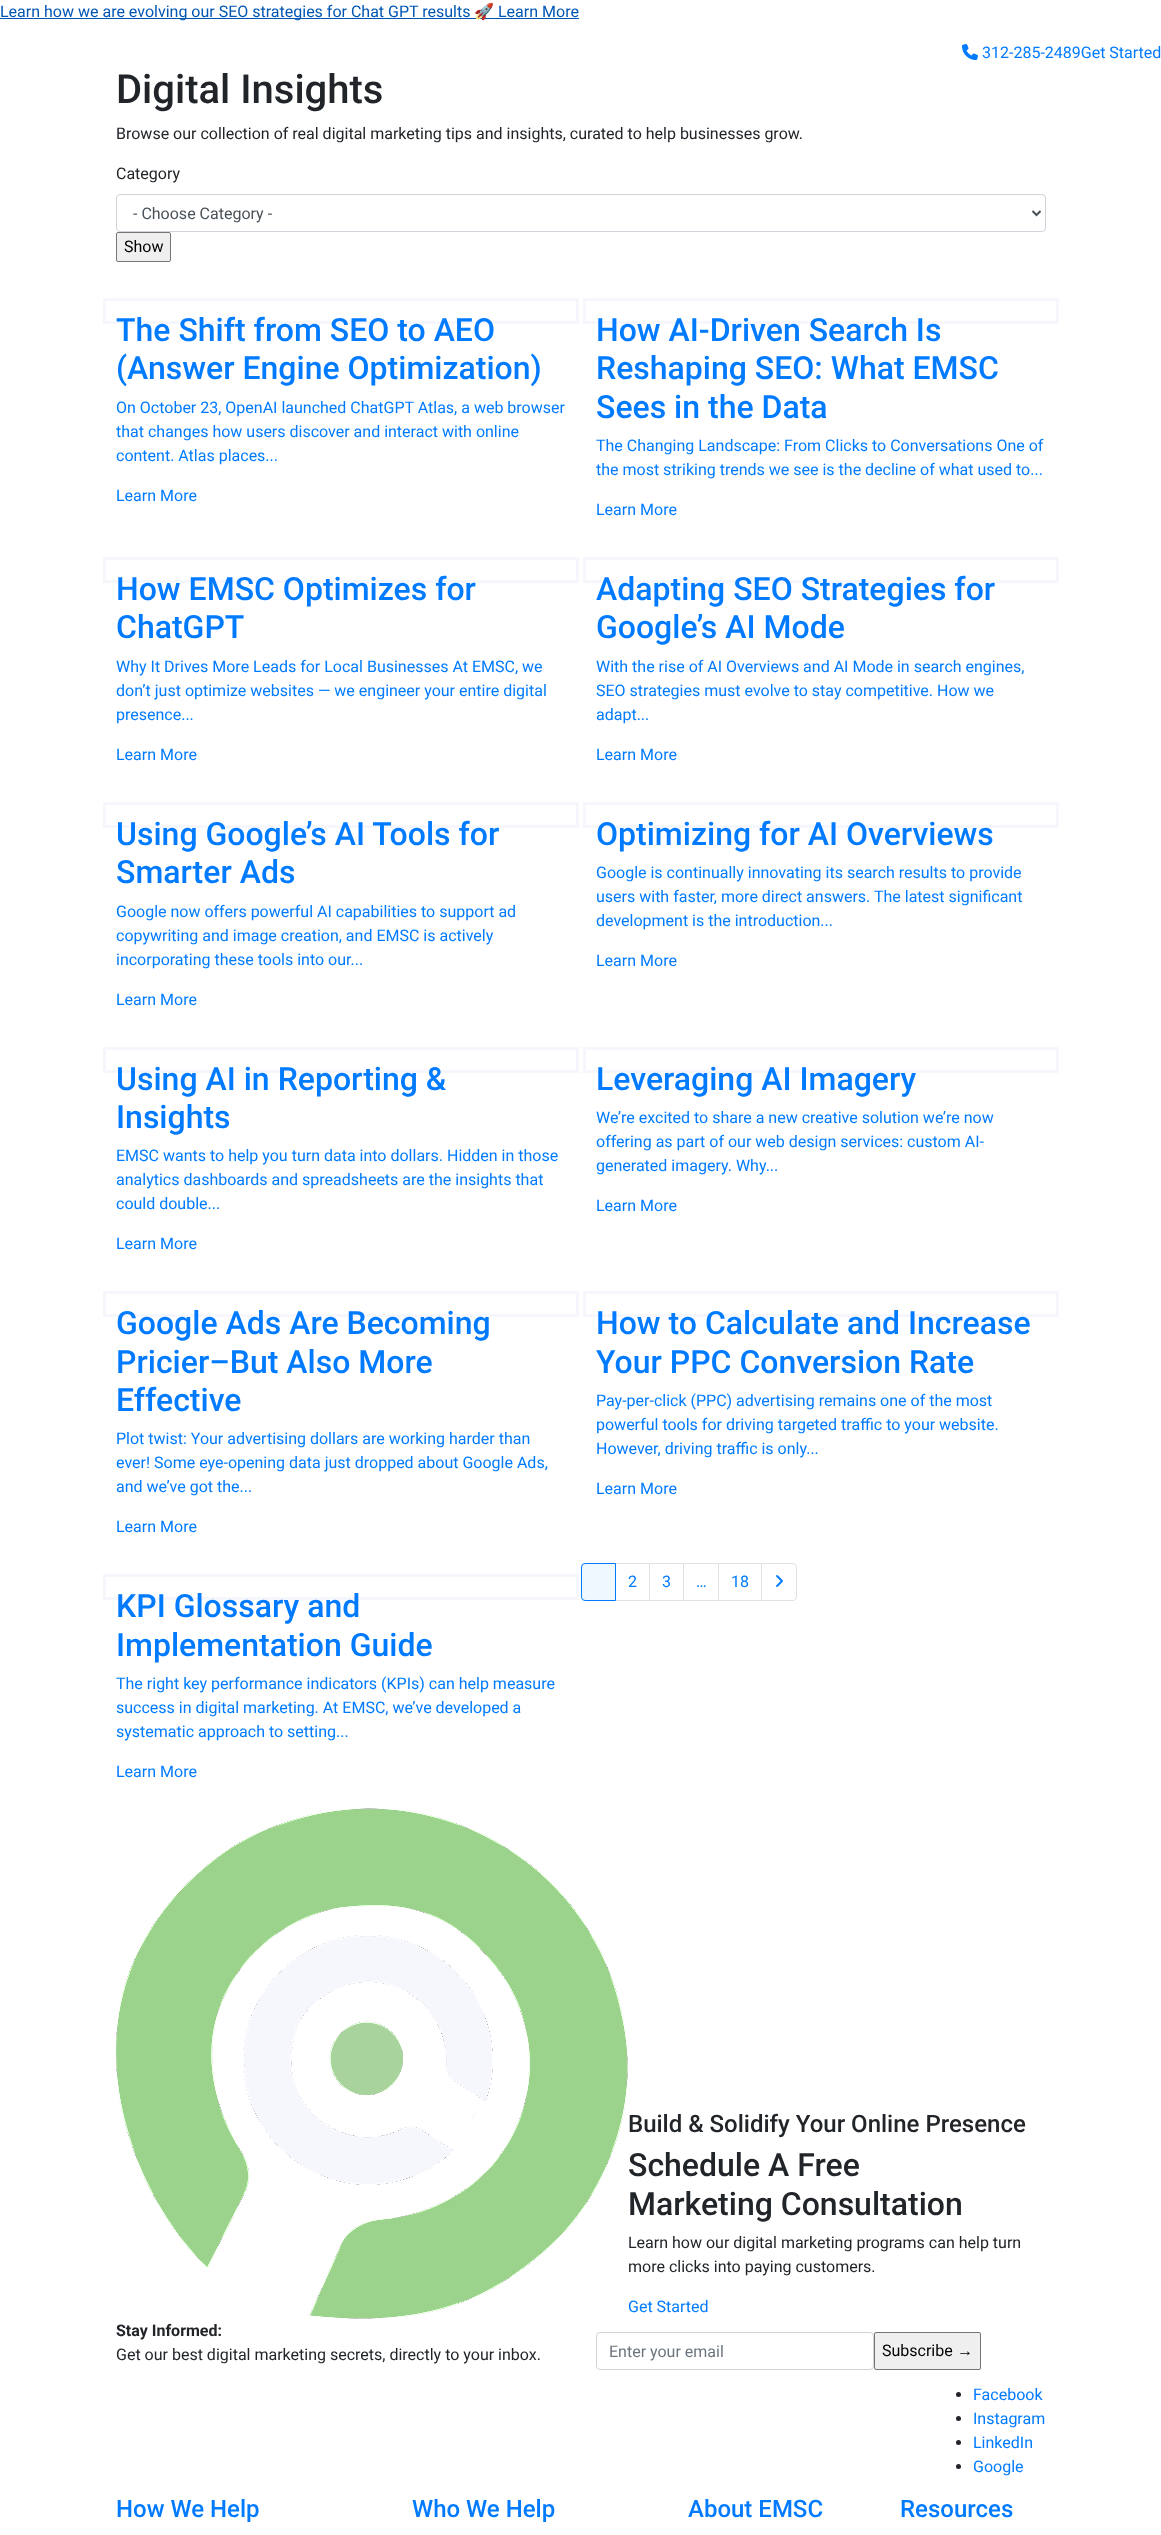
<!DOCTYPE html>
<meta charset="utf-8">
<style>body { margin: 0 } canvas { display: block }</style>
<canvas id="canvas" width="1161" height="2535"></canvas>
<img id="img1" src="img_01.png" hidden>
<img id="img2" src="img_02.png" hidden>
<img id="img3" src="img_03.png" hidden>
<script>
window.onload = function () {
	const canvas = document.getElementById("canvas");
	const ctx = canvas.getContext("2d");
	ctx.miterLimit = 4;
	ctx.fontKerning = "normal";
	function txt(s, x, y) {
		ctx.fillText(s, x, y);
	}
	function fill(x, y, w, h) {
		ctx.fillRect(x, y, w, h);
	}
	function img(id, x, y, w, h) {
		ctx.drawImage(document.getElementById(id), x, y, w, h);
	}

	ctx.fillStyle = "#FFFFFF";
	fill(0, 0, 1161, 2535);
	ctx.fillStyle = "#0056B3";
	fill(0, 18, 579, 1);
	img("img1", 962, 44, 16, 16);
	ctx.beginPath();
	ctx.roundRect(116.5, 194.5, 929, 37, 3.5);
	ctx.strokeStyle = "#CED4DA";
	ctx.stroke();
	ctx.beginPath();
	ctx.moveTo(1032.5, 211);
	ctx.lineTo(1036.5, 215);
	ctx.lineTo(1040.5, 211);
	ctx.strokeStyle = "#495057";
	ctx.lineWidth = 2;
	ctx.stroke();
	ctx.fillStyle = "#EFEFEF";
	ctx.beginPath();
	ctx.roundRect(116.5, 232.5, 54, 29, 1.5);
	ctx.fill();
	ctx.strokeStyle = "#767676";
	ctx.lineWidth = 1;
	ctx.stroke();
	ctx.strokeStyle = "#F6F7FC";
	ctx.lineWidth = 3;
	ctx.strokeRect(104.5, 299.5, 473, 23);
	ctx.strokeRect(584.5, 299.5, 473, 23);
	ctx.strokeRect(104.5, 558.5, 473, 23);
	ctx.strokeRect(584.5, 558.5, 473, 23);
	ctx.strokeRect(104.5, 803.5, 473, 23);
	ctx.strokeRect(584.5, 803.5, 473, 23);
	ctx.strokeRect(104.5, 1048.5, 473, 23);
	ctx.strokeRect(584.5, 1048.5, 473, 23);
	ctx.strokeRect(104.5, 1292.5, 473, 23);
	ctx.strokeRect(584.5, 1292.5, 473, 23);
	ctx.strokeStyle = "#DEE2E6";
	ctx.lineWidth = 1;
	ctx.strokeRect(615.5, 1563.5, 34, 37);
	ctx.fillStyle = "#F0F8FF";
	ctx.beginPath();
	ctx.roundRect(581.5, 1563.5, 34, 37, [3.5, 0, 0, 3.5]);
	ctx.fill();
	ctx.strokeStyle = "#007BFF";
	ctx.stroke();
	ctx.strokeStyle = "#DEE2E6";
	ctx.strokeRect(649.5, 1563.5, 34, 37);
	ctx.strokeRect(683.5, 1563.5, 35, 37);
	ctx.strokeRect(718.5, 1563.5, 43, 37);
	ctx.fillStyle = "#FFFFFF";
	ctx.beginPath();
	ctx.roundRect(761.5, 1563.5, 35, 37, [0, 3.5, 3.5, 0]);
	ctx.fill();
	ctx.stroke();
	img("img2", 776, 1575, 7, 12);
	ctx.strokeStyle = "#F6F7FC";
	ctx.lineWidth = 3;
	ctx.strokeRect(104.5, 1575.5, 473, 23);
	img("img3", 116, 1808, 512, 511);
	ctx.beginPath();
	ctx.roundRect(596.5, 2332.5, 277, 37, 3.5);
	ctx.strokeStyle = "#CED4DA";
	ctx.lineWidth = 1;
	ctx.stroke();
	ctx.fillStyle = "#EFEFEF";
	ctx.beginPath();
	ctx.roundRect(874.5, 2332.5, 106, 37, 1.5);
	ctx.fill();
	ctx.strokeStyle = "#767676";
	ctx.stroke();
	ctx.fillStyle = "#212529";
	ctx.beginPath();
	ctx.arc(958.5, 2394.5, 2.5, 0, Math.PI * 2);
	ctx.fill();
	ctx.beginPath();
	ctx.arc(958.5, 2418.5, 2.5, 0, Math.PI * 2);
	ctx.fill();
	ctx.beginPath();
	ctx.arc(958.5, 2442.5, 2.5, 0, Math.PI * 2);
	ctx.fill();
	ctx.beginPath();
	ctx.arc(958.5, 2466.5, 2.5, 0, Math.PI * 2);
	ctx.fill();
	ctx.font = "16px Roboto";
	ctx.fillStyle = "#0056B3";
	txt("Learn how we are evolving our SEO strategies for Chat GPT results", 0, 17);
	ctx.font = "16px Noto Color Emoji";
	txt("🚀", 474, 17);
	ctx.font = "16px Roboto";
	txt("Learn More", 498, 17);
	ctx.fillStyle = "#007BFF";
	txt("312-285-2489Get Started", 982, 58);
	ctx.font = "500 40px Roboto";
	ctx.fillStyle = "#212529";
	txt("Digital Insights", 116, 103);
	ctx.font = "16px Roboto";
	txt("Browse our collection of real digital marketing tips and insights, curated to help businesses grow.", 116, 139);
	txt("Category", 116, 179);
	ctx.fillStyle = "#495057";
	txt("- Choose Category -", 133, 219);
	ctx.fillStyle = "#000000";
	txt("Show", 124, 252);
	ctx.font = "500 32px Roboto";
	ctx.fillStyle = "#007BFF";
	txt("The Shift from SEO to AEO", 116, 341);
	txt("(Answer Engine Optimization)", 116, 379);
	ctx.font = "16px Roboto";
	txt("On October 23, OpenAI launched ChatGPT Atlas, a web browser", 116, 413);
	txt("that changes how users discover and interact with online", 116, 437);
	txt("content. Atlas places...", 116, 461);
	txt("Learn More", 116, 501);
	ctx.font = "500 32px Roboto";
	txt("How AI‑Driven Search Is", 596, 341);
	txt("Reshaping SEO: What EMSC", 596, 379);
	txt("Sees in the Data", 596, 418);
	ctx.font = "16px Roboto";
	txt("The Changing Landscape: From Clicks to Conversations One of", 596, 451);
	txt("the most striking trends we see is the decline of what used to...", 596, 475);
	txt("Learn More", 596, 515);
	ctx.font = "500 32px Roboto";
	txt("How EMSC Optimizes for", 116, 600);
	txt("ChatGPT", 116, 638);
	ctx.font = "16px Roboto";
	txt("Why It Drives More Leads for Local Businesses At EMSC, we", 116, 672);
	txt("don’t just optimize websites — we engineer your entire digital", 116, 696);
	txt("presence...", 116, 720);
	txt("Learn More", 116, 760);
	ctx.font = "500 32px Roboto";
	txt("Adapting SEO Strategies for", 596, 600);
	txt("Google’s AI Mode", 596, 638);
	ctx.font = "16px Roboto";
	txt("With the rise of AI Overviews and AI Mode in search engines,", 596, 672);
	txt("SEO strategies must evolve to stay competitive. How we", 596, 696);
	txt("adapt...", 596, 720);
	txt("Learn More", 596, 760);
	ctx.font = "500 32px Roboto";
	txt("Using Google’s AI Tools for", 116, 845);
	txt("Smarter Ads", 116, 883);
	ctx.font = "16px Roboto";
	txt("Google now offers powerful AI capabilities to support ad", 116, 917);
	txt("copywriting and image creation, and EMSC is actively", 116, 941);
	txt("incorporating these tools into our...", 116, 965);
	txt("Learn More", 116, 1005);
	ctx.font = "500 32px Roboto";
	txt("Optimizing for AI Overviews", 596, 845);
	ctx.font = "16px Roboto";
	txt("Google is continually innovating its search results to provide", 596, 878);
	txt("users with faster, more direct answers. The latest significant", 596, 902);
	txt("development is the introduction...", 596, 926);
	txt("Learn More", 596, 966);
	ctx.font = "500 32px Roboto";
	txt("Using AI in Reporting &", 116, 1090);
	txt("Insights", 116, 1128);
	ctx.font = "16px Roboto";
	txt("EMSC wants to help you turn data into dollars. Hidden in those", 116, 1161);
	txt("analytics dashboards and spreadsheets are the insights that", 116, 1185);
	txt("could double...", 116, 1209);
	txt("Learn More", 116, 1249);
	ctx.font = "500 32px Roboto";
	txt("Leveraging AI Imagery", 596, 1090);
	ctx.font = "16px Roboto";
	txt("We’re excited to share a new creative solution we’re now", 596, 1123);
	txt("offering as part of our web design services: custom AI-", 596, 1147);
	txt("generated imagery. Why...", 596, 1171);
	txt("Learn More", 596, 1211);
	ctx.font = "500 32px Roboto";
	txt("Google Ads Are Becoming", 116, 1334);
	txt("Pricier–But Also More", 116, 1373);
	txt("Effective", 116, 1411);
	ctx.font = "16px Roboto";
	txt("Plot twist: Your advertising dollars are working harder than", 116, 1444);
	txt("ever! Some eye-opening data just dropped about Google Ads,", 116, 1468);
	txt("and we’ve got the...", 116, 1492);
	txt("Learn More", 116, 1532);
	ctx.font = "500 32px Roboto";
	txt("How to Calculate and Increase", 596, 1334);
	txt("Your PPC Conversion Rate", 596, 1373);
	ctx.font = "16px Roboto";
	txt("Pay-per-click (PPC) advertising remains one of the most", 596, 1406);
	txt("powerful tools for driving targeted traffic to your website.", 596, 1430);
	txt("However, driving traffic is only...", 596, 1454);
	txt("Learn More", 596, 1494);
	txt("2", 628, 1587);
	txt("3", 662, 1587);
	txt("…", 696, 1587);
	txt("18", 731, 1587);
	ctx.font = "500 32px Roboto";
	txt("KPI Glossary and", 116, 1617);
	txt("Implementation Guide", 116, 1656);
	ctx.font = "16px Roboto";
	txt("The right key performance indicators (KPIs) can help measure", 116, 1689);
	txt("success in digital marketing. At EMSC, we’ve developed a", 116, 1713);
	txt("systematic approach to setting...", 116, 1737);
	txt("Learn More", 116, 1777);
	ctx.font = "500 24px Roboto";
	ctx.fillStyle = "#212529";
	txt("Build & Solidify Your Online Presence", 628, 2132);
	ctx.font = "500 32px Roboto";
	txt("Schedule A Free", 628, 2176);
	txt("Marketing Consultation", 628, 2215);
	ctx.font = "16px Roboto";
	txt("Learn how our digital marketing programs can help turn", 628, 2248);
	txt("more clicks into paying customers.", 628, 2272);
	ctx.fillStyle = "#007BFF";
	txt("Get Started", 628, 2312);
	ctx.font = "bold 16px Roboto";
	ctx.fillStyle = "#212529";
	txt("Stay Informed:", 116, 2336);
	ctx.font = "16px Roboto";
	txt("Get our best digital marketing secrets, directly to your inbox.", 116, 2360);
	ctx.fillStyle = "#6C757D";
	txt("Enter your email", 609, 2357);
	ctx.fillStyle = "#000000";
	txt("Subscribe", 882, 2356);
	ctx.font = "16px Liberation Sans";
	txt("→", 957, 2356);
	ctx.font = "16px Roboto";
	ctx.fillStyle = "#007BFF";
	txt("Facebook", 973, 2400);
	txt("Instagram", 973, 2424);
	txt("LinkedIn", 973, 2448);
	txt("Google", 973, 2472);
	ctx.font = "500 24px Roboto";
	txt("How We Help", 116, 2517);
	txt("Who We Help", 412, 2517);
	txt("About EMSC", 688, 2517);
	txt("Resources", 900, 2517);
};
</script>
